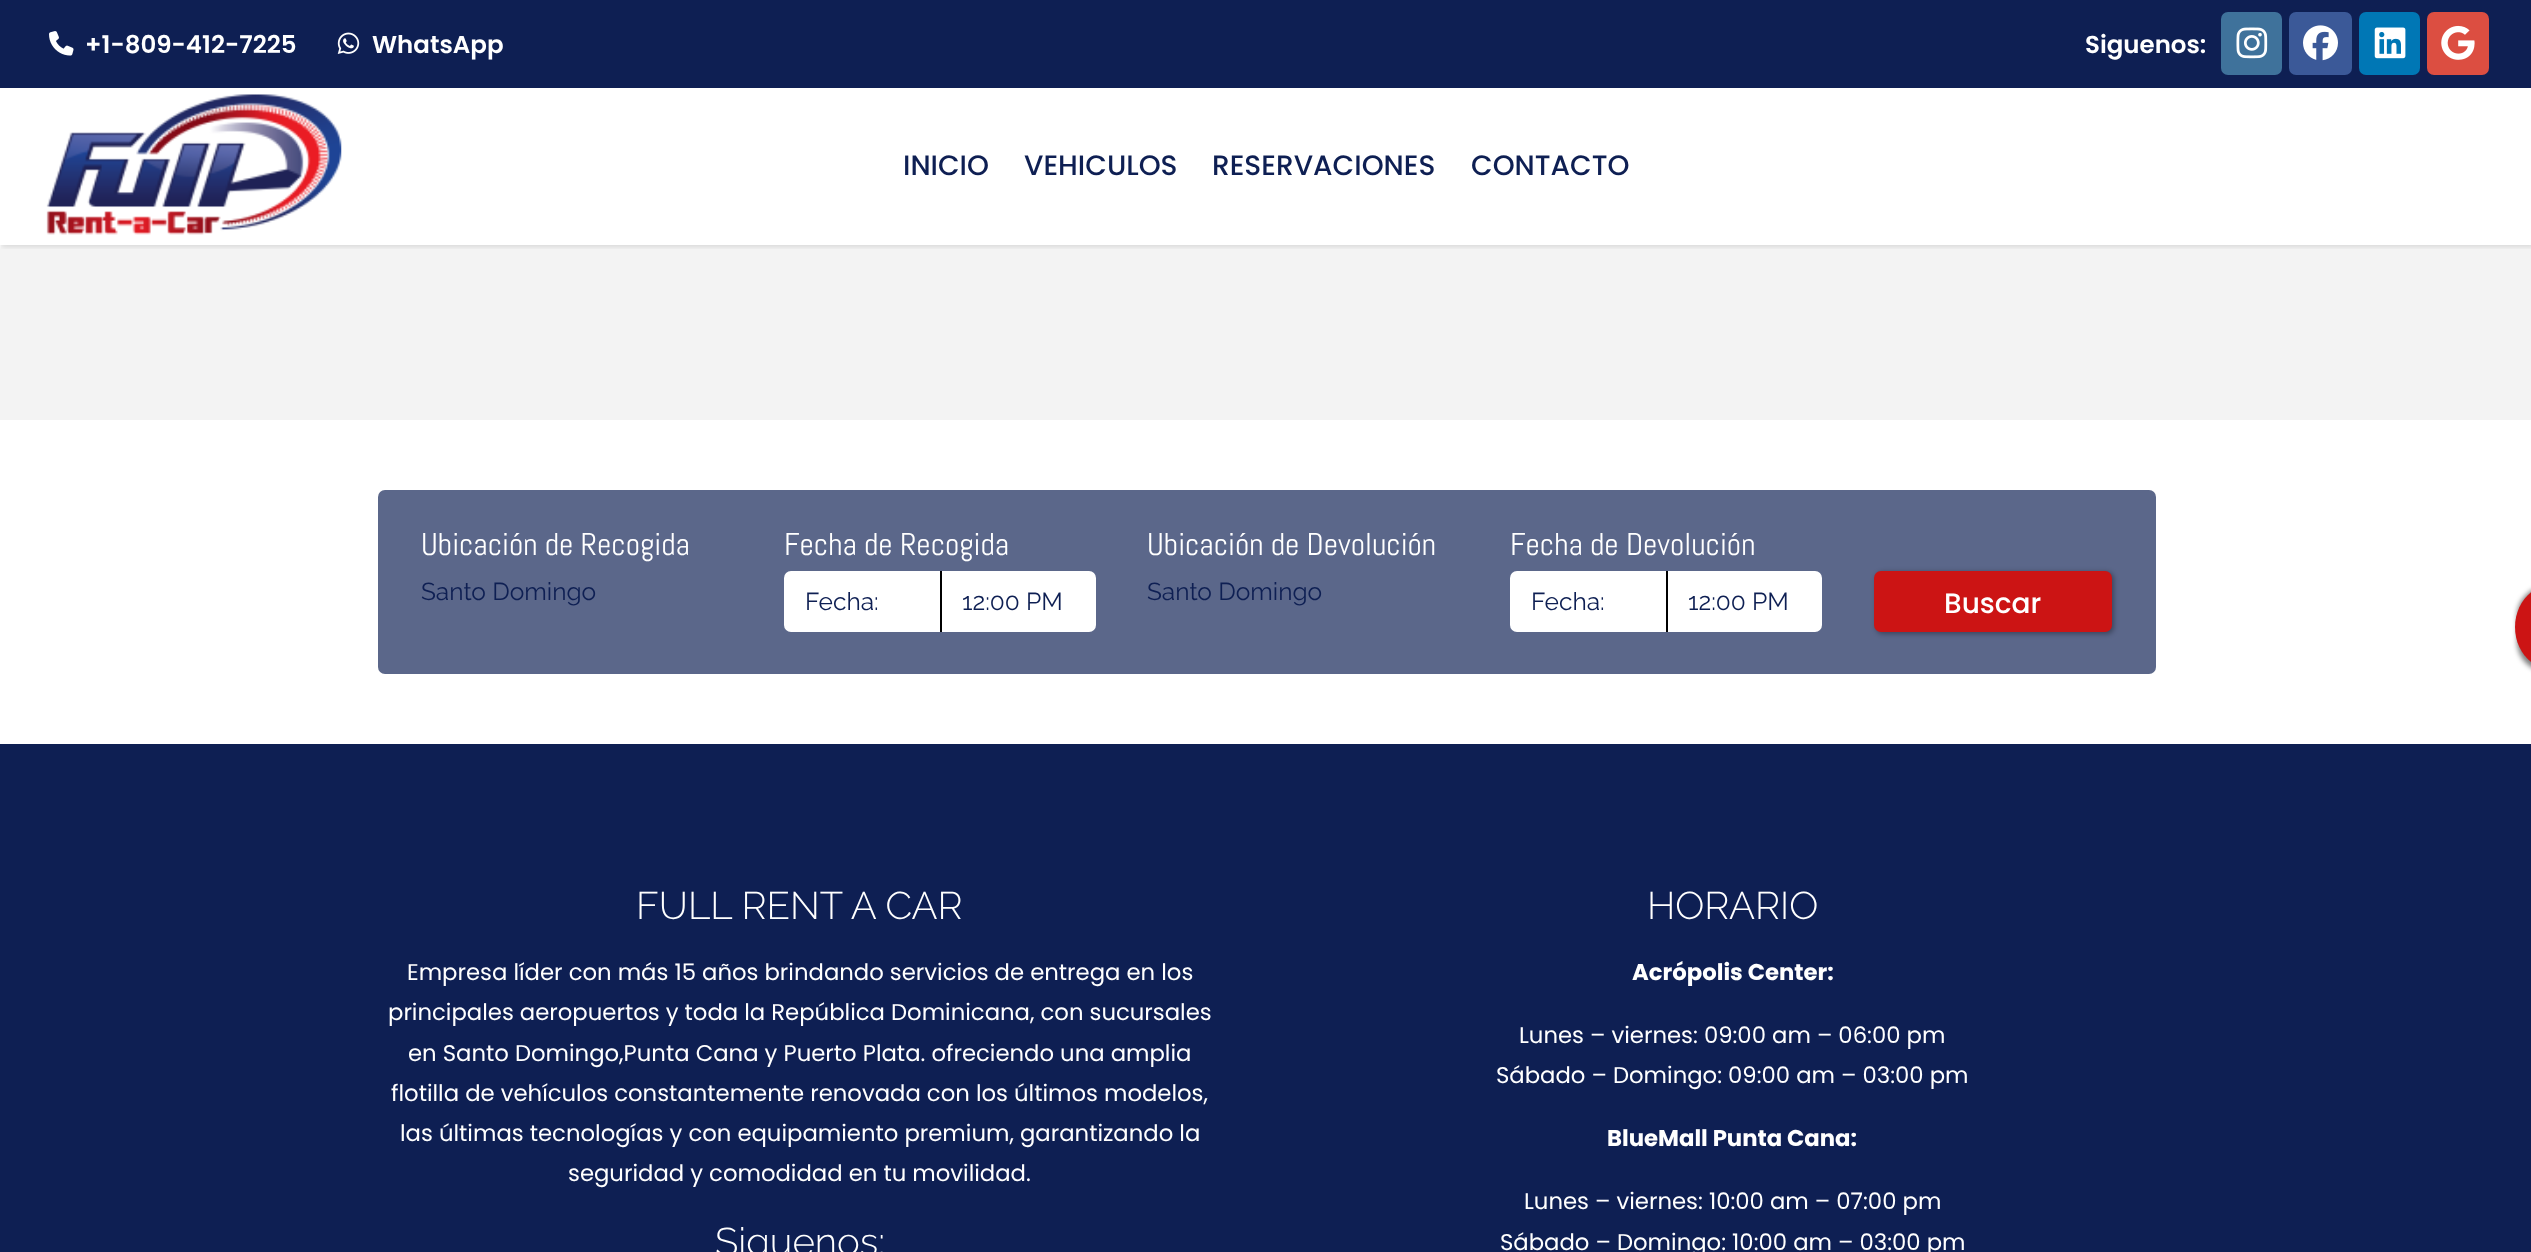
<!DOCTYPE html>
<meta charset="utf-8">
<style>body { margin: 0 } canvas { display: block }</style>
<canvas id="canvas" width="2531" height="1252"></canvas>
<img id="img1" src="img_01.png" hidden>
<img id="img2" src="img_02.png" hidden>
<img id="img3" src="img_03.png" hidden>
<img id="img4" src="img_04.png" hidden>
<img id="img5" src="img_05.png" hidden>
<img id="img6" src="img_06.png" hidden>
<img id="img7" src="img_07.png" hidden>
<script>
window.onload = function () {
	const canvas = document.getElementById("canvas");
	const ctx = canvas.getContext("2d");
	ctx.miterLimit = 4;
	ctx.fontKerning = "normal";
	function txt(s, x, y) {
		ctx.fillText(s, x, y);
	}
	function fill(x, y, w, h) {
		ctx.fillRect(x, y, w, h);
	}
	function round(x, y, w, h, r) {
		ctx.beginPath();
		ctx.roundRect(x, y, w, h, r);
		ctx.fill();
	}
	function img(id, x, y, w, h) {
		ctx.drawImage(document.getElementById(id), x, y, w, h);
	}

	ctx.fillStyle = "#FFFFFF";
	fill(0, 0, 2531, 1252);
	ctx.fillStyle = "#0E1F53";
	fill(0, 0, 2531, 88);
	img("img1", 49, 31, 25, 25);
	img("img2", 337, 32, 23, 22);
	ctx.fillStyle = "#3F729B";
	round(2221, 12, 61, 63, 7);
	img("img3", 2236, 27, 32, 32);
	ctx.fillStyle = "#3B5998";
	round(2289, 12, 63, 63, 7);
	img("img4", 2303, 25, 35, 36);
	ctx.fillStyle = "#0077B5";
	round(2359, 12, 61, 63, 7);
	img("img5", 2374, 27, 32, 32);
	ctx.fillStyle = "#DC4E41";
	round(2427, 12, 62, 63, 7);
	img("img6", 2441, 25, 34, 35);
	ctx.fillStyle = "#F3F3F3";
	fill(0, 245, 2531, 175);
	ctx.save();
	ctx.beginPath();
	ctx.rect(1, 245, 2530, 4);
	ctx.clip();
	ctx.fillStyle = "rgba(0, 0, 0, 0.1)";
	ctx.filter = "blur(2.5px)";
	ctx.beginPath();
	ctx.rect(2, 89, 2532, 158);
	ctx.fill();
	ctx.filter = "none";
	ctx.restore();
	img("img7", 46, 94, 296, 141);
	ctx.fillStyle = "#5B678A";
	round(378, 490, 1778, 184, 7);
	ctx.fillStyle = "#FFFFFF";
	ctx.beginPath();
	ctx.roundRect(784, 571, 156, 61, [7, 0, 0, 7]);
	ctx.fill();
	ctx.beginPath();
	ctx.roundRect(940, 571, 156, 61, [0, 7, 7, 0]);
	ctx.fill();
	ctx.fillStyle = "#000000";
	fill(940, 571, 2, 61);
	ctx.fillStyle = "#FFFFFF";
	ctx.beginPath();
	ctx.roundRect(1510, 571, 156, 61, [7, 0, 0, 7]);
	ctx.fill();
	ctx.beginPath();
	ctx.roundRect(1666, 571, 156, 61, [0, 7, 7, 0]);
	ctx.fill();
	ctx.fillStyle = "#000000";
	fill(1666, 571, 2, 61);
	ctx.fillStyle = "rgba(0, 0, 0, 0.33)";
	ctx.filter = "blur(2.5px)";
	ctx.beginPath();
	ctx.roundRect(1876, 572, 238, 62, 7);
	ctx.fill();
	ctx.filter = "none";
	ctx.fillStyle = "#CC1414";
	round(1874, 571, 238, 61, 7);
	ctx.fillStyle = "rgba(0, 0, 0, 0.5)";
	ctx.filter = "blur(2.5px)";
	ctx.beginPath();
	ctx.roundRect(2517, 586, 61, 86, 39);
	ctx.fill();
	ctx.filter = "none";
	ctx.fillStyle = "#CC1414";
	ctx.beginPath();
	ctx.moveTo(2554, 584);
	ctx.lineTo(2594, 584);
	ctx.lineTo(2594, 670);
	ctx.lineTo(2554, 670);
	ctx.bezierCurveTo(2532, 670, 2515, 651, 2515, 627);
	ctx.bezierCurveTo(2515, 604, 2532, 584, 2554, 584);
	ctx.closePath();
	ctx.fill();
	ctx.fillStyle = "#0E1F53";
	fill(0, 744, 2531, 508);
	ctx.font = "600 24.5px Poppins";
	ctx.fillStyle = "#FFFFFF";
	txt("+1-809-412-7225", 85, 53);
	txt("WhatsApp", 372, 53);
	txt("Siguenos:", 2085, 53);
	ctx.font = "500 28px Poppins";
	ctx.fillStyle = "#0E1F53";
	txt("INICIO", 903, 175);
	txt("VEHICULOS", 1024, 175);
	txt("RESERVACIONES", 1212, 175);
	txt("CONTACTO", 1471, 175);
	ctx.font = "31.5px Abel";
	ctx.fillStyle = "#FFFFFF";
	txt("Ubicación de Recogida", 421, 555);
	ctx.font = "24.5px Raleway";
	ctx.fillStyle = "#0E1F53";
	txt("Santo Domingo", 421, 600);
	ctx.font = "31.5px Abel";
	ctx.fillStyle = "#FFFFFF";
	txt("Fecha de Recogida", 784, 555);
	ctx.font = "24.5px Raleway";
	ctx.fillStyle = "#0E1F53";
	txt("Fecha:", 805, 610);
	txt("12:00 PM", 962, 610);
	ctx.font = "31.5px Abel";
	ctx.fillStyle = "#FFFFFF";
	txt("Ubicación de Devolución", 1147, 555);
	ctx.font = "24.5px Raleway";
	ctx.fillStyle = "#0E1F53";
	txt("Santo Domingo", 1147, 600);
	ctx.font = "31.5px Abel";
	ctx.fillStyle = "#FFFFFF";
	txt("Fecha de Devolución", 1510, 555);
	ctx.font = "24.5px Raleway";
	ctx.fillStyle = "#0E1F53";
	txt("Fecha:", 1531, 610);
	txt("12:00 PM", 1688, 610);
	ctx.font = "500 28px Poppins";
	ctx.fillStyle = "#FFFFFF";
	txt("Buscar", 1944, 613);
	ctx.font = "300 38.5px Raleway";
	txt("FULL RENT A CAR", 636, 919);
	ctx.font = "22.75px Poppins";
	txt("Empresa líder con más 15 años brindando servicios de entrega en los", 407, 980);
	txt("principales aeropuertos y toda la República Dominicana, con sucursales", 388, 1020);
	txt("en Santo Domingo,Punta Cana y Puerto Plata. ofreciendo una amplia", 408, 1061);
	txt("flotilla de vehículos constantemente renovada con los últimos modelos,", 391, 1101);
	txt("las últimas tecnologías y con equipamiento premium, garantizando la", 400, 1141);
	txt("seguridad y comodidad en tu movilidad.", 568, 1181);
	ctx.font = "300 38.5px Raleway";
	txt("Siguenos:", 715, 1255);
	txt("HORARIO", 1647, 919);
	ctx.font = "bold 22.75px Poppins";
	txt("Acrópolis Center:", 1632, 980);
	ctx.font = "22.75px Poppins";
	txt("Lunes – viernes: 09:00 am – 06:00 pm", 1519, 1043);
	txt("Sábado – Domingo: 09:00 am – 03:00 pm", 1496, 1083);
	ctx.font = "bold 22.75px Poppins";
	txt("BlueMall Punta Cana:", 1607, 1146);
	ctx.font = "22.75px Poppins";
	txt("Lunes – viernes: 10:00 am – 07:00 pm", 1524, 1209);
	txt("Sábado – Domingo: 10:00 am – 03:00 pm", 1500, 1250);
};
</script>
